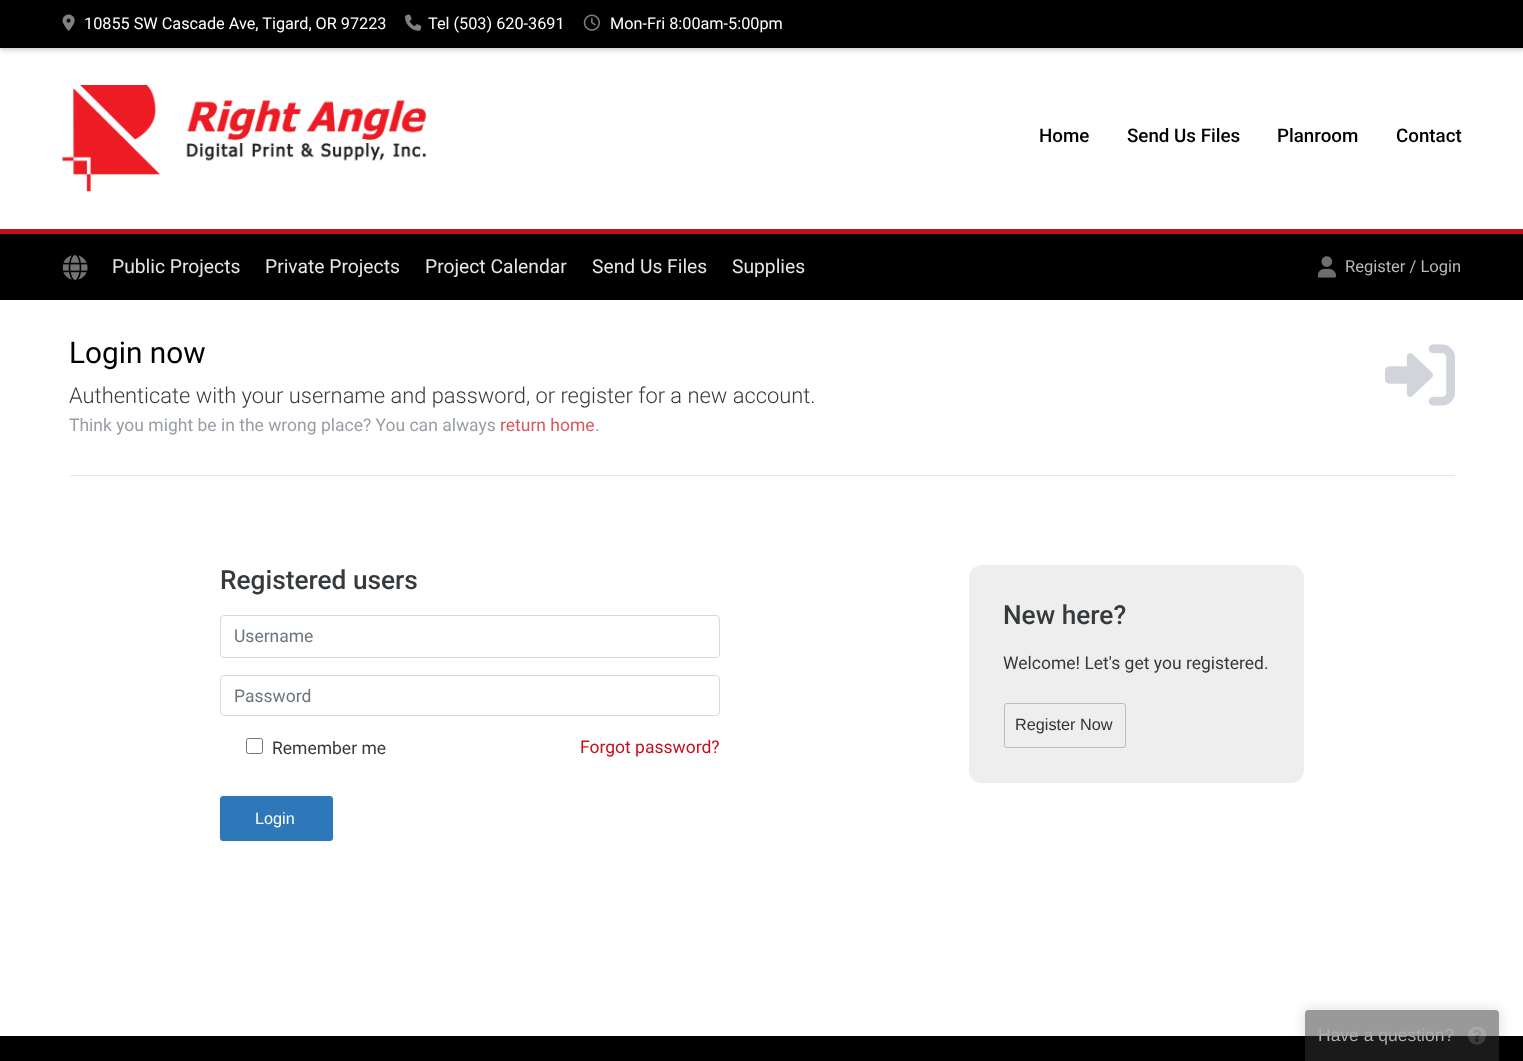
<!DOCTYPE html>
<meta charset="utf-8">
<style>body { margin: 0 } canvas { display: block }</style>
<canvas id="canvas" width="1523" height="1061"></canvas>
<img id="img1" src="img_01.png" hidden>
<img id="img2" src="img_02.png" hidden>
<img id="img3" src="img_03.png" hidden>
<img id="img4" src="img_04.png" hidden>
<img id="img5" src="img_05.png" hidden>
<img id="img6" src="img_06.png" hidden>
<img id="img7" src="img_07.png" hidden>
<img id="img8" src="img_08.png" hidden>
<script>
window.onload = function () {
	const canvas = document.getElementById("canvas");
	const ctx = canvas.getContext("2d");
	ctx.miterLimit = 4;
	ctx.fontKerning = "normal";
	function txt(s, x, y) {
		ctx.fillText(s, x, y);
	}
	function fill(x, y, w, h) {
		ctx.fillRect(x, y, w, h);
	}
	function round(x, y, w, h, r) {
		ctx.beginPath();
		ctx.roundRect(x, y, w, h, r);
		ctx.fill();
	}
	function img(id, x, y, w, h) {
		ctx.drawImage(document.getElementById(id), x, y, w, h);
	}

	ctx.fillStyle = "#FFFFFF";
	fill(0, 0, 1523, 1061);
	ctx.fillStyle = "#C61019";
	fill(0, 229, 1523, 5);
	ctx.fillStyle = "rgba(0, 0, 0, 0.21)";
	ctx.filter = "blur(2.5px)";
	ctx.beginPath();
	ctx.rect(0, 3, 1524, 47);
	ctx.fill();
	ctx.filter = "none";
	ctx.fillStyle = "#000000";
	fill(0, 0, 1523, 48);
	img("img1", 62, 14, 13, 17);
	img("img2", 405, 14, 17, 17);
	img("img3", 583, 14, 17, 17);
	img("img4", 62, 85, 365, 107);
	fill(0, 234, 1523, 66);
	img("img5", 63, 255, 25, 25);
	img("img6", 1318, 256, 18, 22);
	ctx.fillStyle = "#E6E6E6";
	fill(70, 475, 1385, 1);
	img("img7", 1385, 344, 70, 62);
	ctx.beginPath();
	ctx.roundRect(220.5, 615.5, 499, 42, 3.5);
	ctx.strokeStyle = "#D9D9D9";
	ctx.stroke();
	ctx.beginPath();
	ctx.roundRect(220.5, 675.5, 499, 40, 3.5);
	ctx.stroke();
	ctx.beginPath();
	ctx.roundRect(246.5, 738.5, 16, 15, 2);
	ctx.strokeStyle = "#767676";
	ctx.stroke();
	ctx.fillStyle = "rgba(0, 0, 0, 0.1)";
	ctx.filter = "blur(1px)";
	ctx.beginPath();
	ctx.roundRect(220, 796, 113, 45, 3);
	ctx.fill();
	ctx.filter = "none";
	ctx.fillStyle = "#2E78BA";
	ctx.beginPath();
	ctx.roundRect(220.5, 796.5, 112, 44, 2.5);
	ctx.fill();
	ctx.strokeStyle = "#2E78BA";
	ctx.stroke();
	ctx.fillStyle = "#EEEEEE";
	round(969, 565, 335, 218, 13);
	ctx.beginPath();
	ctx.roundRect(1004.5, 703.5, 121, 44, 2.5);
	ctx.strokeStyle = "#BBBBBB";
	ctx.stroke();
	ctx.fillStyle = "#000000";
	fill(0, 1036, 1523, 25);
	ctx.save();
	ctx.beginPath();
	ctx.moveTo(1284, 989);
	ctx.lineTo(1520, 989);
	ctx.lineTo(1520, 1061);
	ctx.lineTo(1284, 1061);
	ctx.closePath();
	ctx.moveTo(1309, 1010);
	ctx.lineTo(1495, 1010);
	ctx.bezierCurveTo(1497, 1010, 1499, 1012, 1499, 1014);
	ctx.lineTo(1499, 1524);
	ctx.lineTo(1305, 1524);
	ctx.lineTo(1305, 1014);
	ctx.bezierCurveTo(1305, 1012, 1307, 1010, 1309, 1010);
	ctx.closePath();
	ctx.clip("evenodd");
	ctx.fillStyle = "rgba(0, 0, 0, 0.1)";
	ctx.filter = "blur(6px)";
	ctx.beginPath();
	ctx.roundRect(1303, 1008, 198, 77, 6);
	ctx.fill();
	ctx.filter = "none";
	ctx.restore();
	ctx.fillStyle = "rgba(51, 51, 51, 0.5)";
	ctx.beginPath();
	ctx.roundRect(1305, 1010, 194, 51, [4, 4, 0, 0]);
	ctx.fill();
	img("img8", 1468, 1026, 18, 19);
	ctx.font = "16.25px Roboto";
	ctx.fillStyle = "#FFFFFF";
	txt("10855 SW Cascade Ave, Tigard, OR 97223", 84, 29);
	txt("Tel (503) 620-3691", 428, 29);
	txt("Mon-Fri 8:00am-5:00pm", 610, 29);
	ctx.font = "500 18.75px Roboto";
	ctx.fillStyle = "#000000";
	txt("Home", 1039, 142);
	txt("Send Us Files", 1127, 142);
	txt("Planroom", 1277, 142);
	txt("Contact", 1396, 142);
	ctx.font = "19.25px Roboto";
	ctx.fillStyle = "#E6E6E6";
	txt("Public Projects", 112, 273);
	txt("Private Projects", 265, 273);
	txt("Project Calendar", 425, 273);
	txt("Send Us Files", 592, 273);
	txt("Supplies", 732, 273);
	ctx.font = "16.5px Roboto";
	ctx.fillStyle = "#B8B8B8";
	txt("Register / Login", 1345, 272);
	ctx.font = "29.75px Roboto";
	ctx.fillStyle = "#000000";
	txt("Login now", 69, 363);
	ctx.font = "300 21.9px Roboto";
	ctx.fillStyle = "#373A3C";
	txt("Authenticate with your username and password, or register for a new account.", 69, 403);
	ctx.font = "17.5px Roboto";
	ctx.fillStyle = "#989EA4";
	txt("Think you might be in the wrong place? You can always", 69, 431);
	ctx.fillStyle = "#D7585E";
	txt("return home", 500, 431);
	ctx.fillStyle = "#989EA4";
	txt(".", 595, 431);
	ctx.font = "500 26.25px Roboto";
	ctx.fillStyle = "#373A3C";
	txt("Registered users", 220, 589);
	ctx.font = "17.5px Roboto";
	ctx.fillStyle = "#6C757D";
	txt("Username", 234, 642);
	txt("Password", 234, 702);
	ctx.fillStyle = "#373A3C";
	txt("Remember me", 272, 754);
	ctx.fillStyle = "#C61019";
	txt("Forgot password?", 580, 753);
	ctx.font = "16.25px Liberation Sans";
	ctx.fillStyle = "#FFFFFF";
	txt("Login", 255, 824);
	ctx.font = "500 26.25px Roboto";
	ctx.fillStyle = "#373A3C";
	txt("New here?", 1003, 624);
	ctx.font = "17.5px Roboto";
	txt("Welcome! Let's get you registered.", 1003, 669);
	ctx.font = "16.25px Liberation Sans";
	ctx.fillStyle = "#333333";
	txt("Register Now", 1015, 730);
	ctx.font = "17.5px Liberation Sans";
	ctx.fillStyle = "#ADADAD";
	txt("Have a question?", 1318, 1041);
};
</script>
